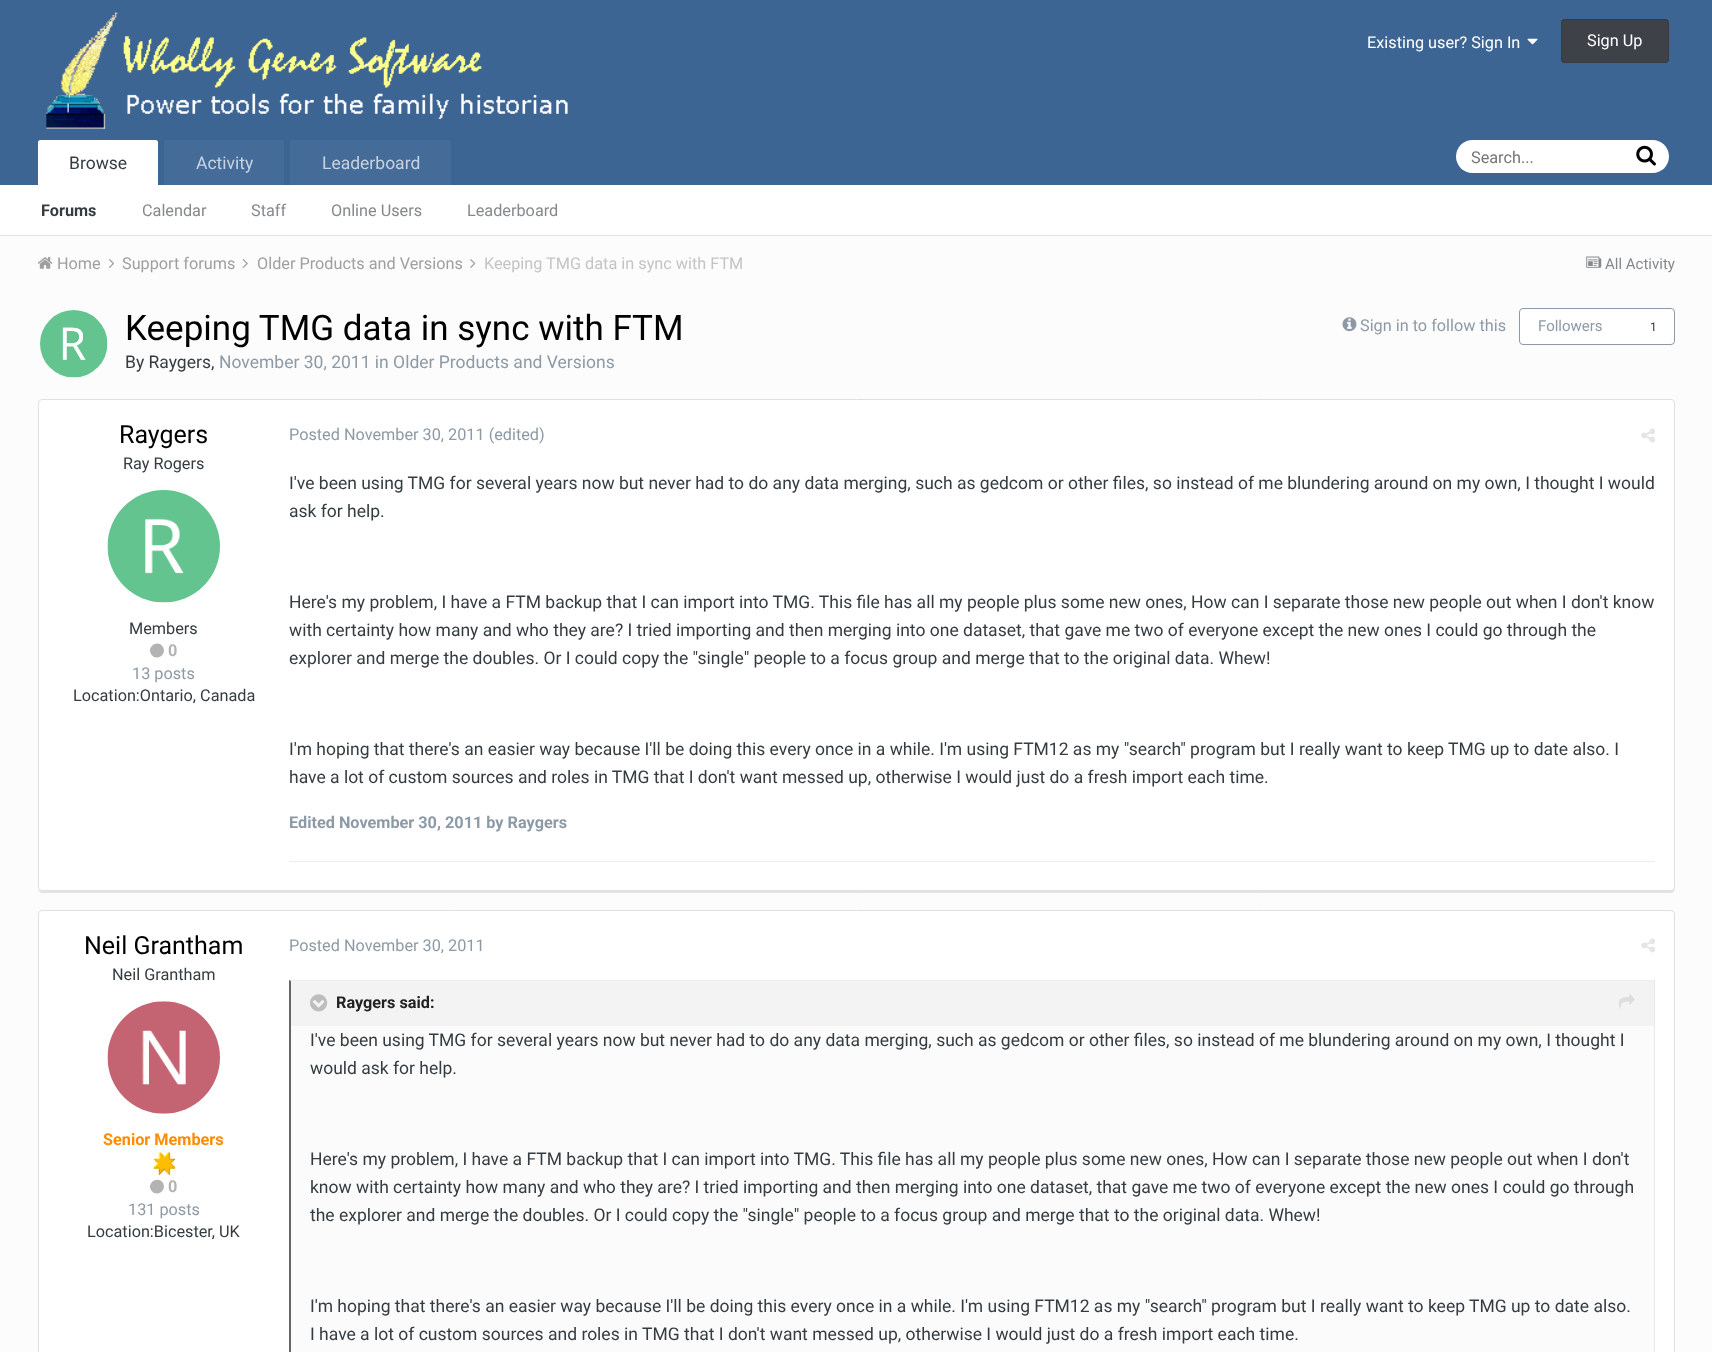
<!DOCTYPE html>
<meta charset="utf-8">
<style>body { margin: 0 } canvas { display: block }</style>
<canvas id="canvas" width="1712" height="1352"></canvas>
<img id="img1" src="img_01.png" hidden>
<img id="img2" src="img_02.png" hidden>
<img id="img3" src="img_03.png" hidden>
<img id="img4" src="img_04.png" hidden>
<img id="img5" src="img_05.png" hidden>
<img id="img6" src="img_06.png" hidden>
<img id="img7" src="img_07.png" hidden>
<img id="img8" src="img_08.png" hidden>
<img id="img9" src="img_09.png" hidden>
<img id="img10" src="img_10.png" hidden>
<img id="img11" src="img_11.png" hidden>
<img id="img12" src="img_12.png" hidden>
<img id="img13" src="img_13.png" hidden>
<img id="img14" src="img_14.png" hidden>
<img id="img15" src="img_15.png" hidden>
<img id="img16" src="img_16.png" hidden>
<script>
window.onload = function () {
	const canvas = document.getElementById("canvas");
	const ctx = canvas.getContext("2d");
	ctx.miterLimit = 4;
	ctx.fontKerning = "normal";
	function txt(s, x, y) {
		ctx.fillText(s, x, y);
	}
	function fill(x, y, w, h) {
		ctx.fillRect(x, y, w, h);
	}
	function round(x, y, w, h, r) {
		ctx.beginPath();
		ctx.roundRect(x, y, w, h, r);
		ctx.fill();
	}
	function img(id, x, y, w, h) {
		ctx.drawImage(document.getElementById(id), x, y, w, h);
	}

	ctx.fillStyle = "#FCFCFC";
	fill(0, 0, 1712, 1352);
	ctx.fillStyle = "#E3E3E3";
	fill(0, 235, 1712, 1);
	ctx.fillStyle = "#3D6594";
	fill(0, 0, 1712, 185);
	img("img1", 46, 11, 522, 118);
	img("img2", 1527, 38, 11, 7);
	ctx.fillStyle = "#3E4148";
	round(1561, 19, 108, 44, 4);
	ctx.beginPath();
	ctx.roundRect(1561.5, 19.5, 107, 43, 3.5);
	ctx.strokeStyle = "rgba(0, 0, 0, 0.1)";
	ctx.stroke();
	ctx.fillStyle = "#FFFFFF";
	fill(0, 185, 1712, 50);
	ctx.fillStyle = "#456B98";
	ctx.beginPath();
	ctx.roundRect(290, 140, 161, 45, [2.5, 2.5, 0, 0]);
	ctx.fill();
	ctx.fillStyle = "#FFFFFF";
	ctx.beginPath();
	ctx.roundRect(38, 140, 120, 45, [2.5, 2.5, 0, 0]);
	ctx.fill();
	ctx.fillStyle = "#456B98";
	ctx.beginPath();
	ctx.roundRect(164, 140, 120, 45, [2.5, 2.5, 0, 0]);
	ctx.fill();
	ctx.fillStyle = "#FFFFFF";
	round(1456, 140, 213, 33, 16.5);
	img("img3", 1636, 145, 20, 21);
	img("img4", 38, 257, 15, 12);
	img("img5", 109, 259, 6, 9);
	img("img6", 242, 259, 6, 9);
	img("img7", 470, 259, 6, 9);
	img("img8", 1586, 256, 16, 12);
	ctx.beginPath();
	ctx.arc(74, 344, 34, 0, Math.PI * 2);
	ctx.fill();
	img("img9", 40, 310, 68, 68);
	img("img10", 1342, 317, 15, 15);
	ctx.beginPath();
	ctx.roundRect(1519.5, 308.5, 155, 36, 3.5);
	ctx.fill();
	ctx.strokeStyle = "#8D9AA6";
	ctx.stroke();
	ctx.fillStyle = "#E3E3E3";
	ctx.beginPath();
	ctx.moveTo(38, 889);
	ctx.bezierCurveTo(38, 891, 40, 893, 42, 893);
	ctx.lineTo(1671, 893);
	ctx.bezierCurveTo(1673, 893, 1675, 891, 1675, 889);
	ctx.lineTo(1675, 888);
	ctx.bezierCurveTo(1675, 890, 1673, 891, 1671, 891);
	ctx.lineTo(41, 891);
	ctx.bezierCurveTo(40, 891, 39, 891, 38, 889);
	ctx.closePath();
	ctx.fill();
	ctx.fillStyle = "#FFFFFF";
	ctx.beginPath();
	ctx.roundRect(38.5, 399.5, 1636, 491, 3.5);
	ctx.fill();
	ctx.strokeStyle = "#E0E0E0";
	ctx.stroke();
	img("img11", 107, 490, 113, 113);
	ctx.fillStyle = "#B3B3B3";
	ctx.beginPath();
	ctx.moveTo(163, 647);
	ctx.bezierCurveTo(167.5, 655, 155.5, 662, 151, 654);
	ctx.bezierCurveTo(146.5, 646, 158.5, 639, 163, 647);
	ctx.closePath();
	ctx.fill();
	img("img12", 1641, 428, 14, 15);
	ctx.fillStyle = "#ECECEC";
	fill(289, 861, 1366, 1);
	ctx.fillStyle = "#FFFFFF";
	ctx.beginPath();
	ctx.roundRect(38.5, 910.5, 1636, 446, 3.5);
	ctx.fill();
	ctx.stroke();
	img("img13", 107, 1001, 113, 113);
	img("img14", 153, 1152, 23, 24);
	ctx.fillStyle = "#B3B3B3";
	ctx.beginPath();
	ctx.moveTo(163, 1183);
	ctx.bezierCurveTo(167.5, 1191, 155.5, 1198, 151, 1190);
	ctx.bezierCurveTo(146.5, 1182.5, 158.5, 1175.5, 163, 1183);
	ctx.closePath();
	ctx.fill();
	img("img12", 1641, 938, 14, 15);
	ctx.fillStyle = "#FBFBFB";
	fill(291, 1026, 1363, 326);
	ctx.fillStyle = "#EDEDED";
	ctx.beginPath();
	ctx.moveTo(289, 980);
	ctx.lineTo(1655, 980);
	ctx.lineTo(1654, 981);
	ctx.lineTo(291, 981);
	ctx.closePath();
	ctx.fill();
	ctx.fillStyle = "#E8E8E8";
	fill(1654, 980, 1, 372);
	ctx.fillStyle = "#666666";
	ctx.beginPath();
	ctx.moveTo(289, 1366);
	ctx.lineTo(289, 980);
	ctx.lineTo(291, 981);
	ctx.lineTo(291, 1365);
	ctx.closePath();
	ctx.fill();
	ctx.fillStyle = "#F3F3F3";
	fill(291, 981, 1363, 45);
	img("img15", 310, 994, 18, 18);
	img("img16", 1618, 994, 17, 15);
	ctx.font = "16.25px Roboto";
	ctx.fillStyle = "#FFFFFF";
	txt("Existing user? Sign In", 1367, 48);
	txt("Sign Up", 1587, 46);
	ctx.font = "17.5px Roboto";
	ctx.fillStyle = "#C7D3E0";
	txt("Leaderboard", 322, 169);
	ctx.fillStyle = "#353C41";
	txt("Browse", 69, 169);
	ctx.font = "bold 16.25px Roboto";
	txt("Forums", 41, 216);
	ctx.font = "16.25px Roboto";
	ctx.fillStyle = "#85898C";
	txt("Calendar", 142, 216);
	txt("Staff", 251, 216);
	txt("Online Users", 331, 216);
	txt("Leaderboard", 467, 216);
	ctx.font = "17.5px Roboto";
	ctx.fillStyle = "#C7D3E0";
	txt("Activity", 196, 169);
	ctx.font = "16.25px Roboto";
	ctx.fillStyle = "#757575";
	txt("Search...", 1471, 163);
	ctx.fillStyle = "#9F9F9F";
	txt("Home", 57, 269);
	txt("Support forums", 122, 269);
	txt("Older Products and Versions", 257, 269);
	ctx.fillStyle = "#C4C4C4";
	txt("Keeping TMG data in sync with FTM", 484, 269);
	ctx.font = "15px Roboto";
	ctx.fillStyle = "#85898C";
	txt("All Activity", 1605, 269);
	ctx.font = "35px Roboto";
	ctx.fillStyle = "#000000";
	txt("Keeping TMG data in sync with FTM", 125, 340);
	ctx.font = "17.5px Roboto";
	ctx.fillStyle = "#353C41";
	txt("By Raygers,", 125, 368);
	ctx.fillStyle = "#8D9AA6";
	txt("November 30, 2011 in Older Products and Versions", 219, 368);
	ctx.font = "16.25px Roboto";
	txt("Sign in to follow this", 1360, 331);
	ctx.font = "15px Roboto";
	txt("Followers", 1538, 331);
	ctx.font = "12px Roboto";
	ctx.fillStyle = "#333333";
	txt("1", 1650, 331);
	ctx.font = "25px Roboto";
	ctx.fillStyle = "#000000";
	txt("Raygers", 119, 443);
	ctx.font = "16.25px Roboto";
	ctx.fillStyle = "#353C41";
	txt("Ray Rogers", 123, 469);
	txt("Members", 129, 634);
	ctx.font = "bold 16.25px Roboto";
	ctx.fillStyle = "#B3B3B3";
	txt("0", 168, 656);
	ctx.font = "16.25px Roboto";
	ctx.fillStyle = "#8D9AA6";
	txt("13 posts", 132, 679);
	ctx.fillStyle = "#353C41";
	txt("Location:Ontario, Canada", 73, 701);
	ctx.fillStyle = "#8D9AA6";
	txt("Posted November 30, 2011 (edited)", 289, 440);
	ctx.font = "17.5px Roboto";
	ctx.fillStyle = "#353C41";
	txt("I've been using TMG for several years now but never had to do any data merging, such as gedcom or other files, so instead of me blundering around on my own, I thought I would", 289, 489);
	txt("ask for help.", 289, 517);
	txt("Here's my problem, I have a FTM backup that I can import into TMG. This file has all my people plus some new ones, How can I separate those new people out when I don't know", 289, 608);
	txt("with certainty how many and who they are? I tried importing and then merging into one dataset, that gave me two of everyone except the new ones I could go through the", 289, 636);
	txt("explorer and merge the doubles. Or I could copy the \"single\" people to a focus group and merge that to the original data. Whew!", 289, 664);
	txt("I'm hoping that there's an easier way because I'll be doing this every once in a while. I'm using FTM12 as my \"search\" program but I really want to keep TMG up to date also. I", 289, 755);
	txt("have a lot of custom sources and roles in TMG that I don't want messed up, otherwise I would just do a fresh import each time.", 289, 783);
	ctx.font = "bold 16.25px Roboto";
	ctx.fillStyle = "#8D9AA6";
	txt("Edited November 30, 2011 by Raygers", 289, 828);
	ctx.font = "25px Roboto";
	ctx.fillStyle = "#000000";
	txt("Neil Grantham", 84, 954);
	ctx.font = "16.25px Roboto";
	ctx.fillStyle = "#353C41";
	txt("Neil Grantham", 112, 980);
	ctx.font = "bold 16.25px Roboto";
	ctx.fillStyle = "#FF8C00";
	txt("Senior Members", 103, 1145);
	ctx.fillStyle = "#B3B3B3";
	txt("0", 168, 1192);
	ctx.font = "16.25px Roboto";
	ctx.fillStyle = "#8D9AA6";
	txt("131 posts", 128, 1215);
	ctx.fillStyle = "#353C41";
	txt("Location:Bicester, UK", 87, 1237);
	ctx.fillStyle = "#8D9AA6";
	txt("Posted November 30, 2011", 289, 951);
	ctx.font = "bold 16.25px Roboto";
	ctx.fillStyle = "#222222";
	txt("Raygers said:", 336, 1008);
	ctx.font = "17.5px Roboto";
	ctx.fillStyle = "#353C41";
	txt("I've been using TMG for several years now but never had to do any data merging, such as gedcom or other files, so instead of me blundering around on my own, I thought I", 310, 1046);
	txt("would ask for help.", 310, 1074);
	txt("Here's my problem, I have a FTM backup that I can import into TMG. This file has all my people plus some new ones, How can I separate those new people out when I don't", 310, 1165);
	txt("know with certainty how many and who they are? I tried importing and then merging into one dataset, that gave me two of everyone except the new ones I could go through", 310, 1193);
	txt("the explorer and merge the doubles. Or I could copy the \"single\" people to a focus group and merge that to the original data. Whew!", 310, 1221);
	txt("I'm hoping that there's an easier way because I'll be doing this every once in a while. I'm using FTM12 as my \"search\" program but I really want to keep TMG up to date also.", 310, 1312);
	txt("I have a lot of custom sources and roles in TMG that I don't want messed up, otherwise I would just do a fresh import each time.", 310, 1340);
};
</script>
